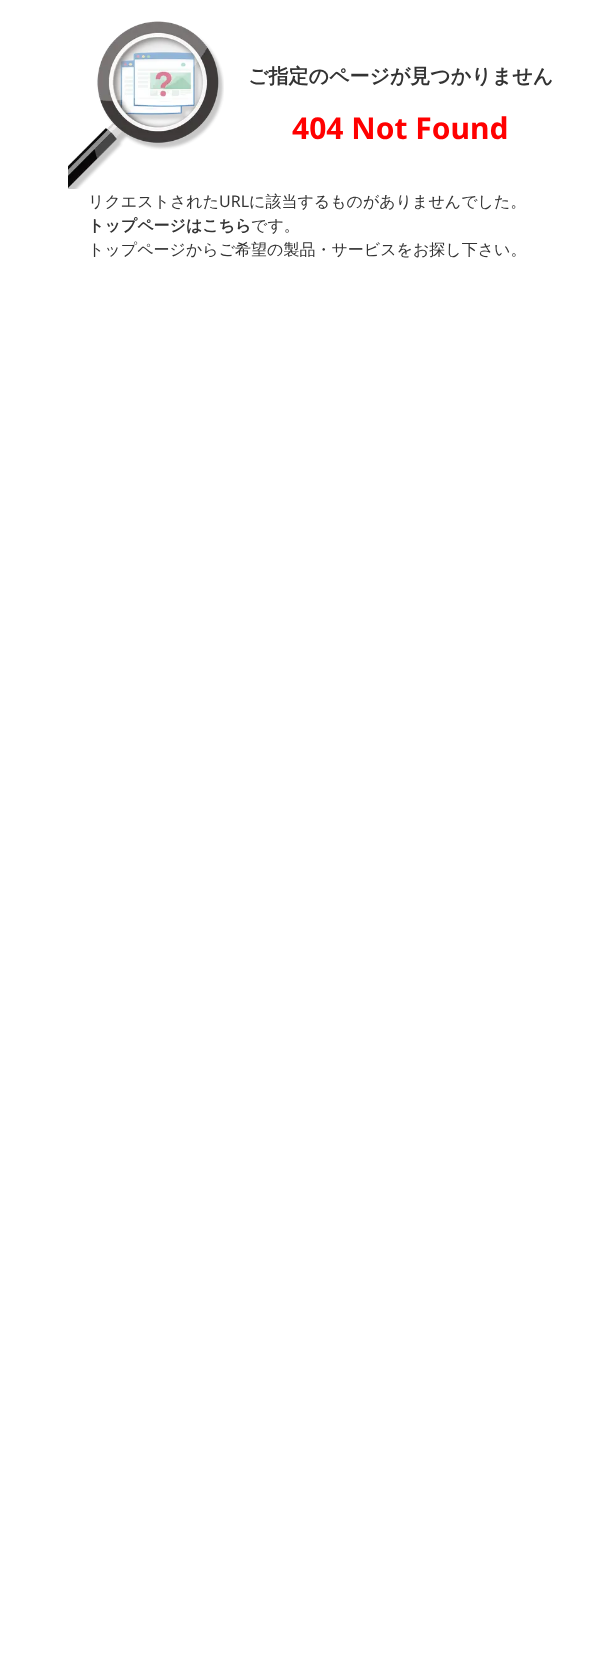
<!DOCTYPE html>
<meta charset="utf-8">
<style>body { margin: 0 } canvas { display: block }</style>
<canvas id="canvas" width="616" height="1654"></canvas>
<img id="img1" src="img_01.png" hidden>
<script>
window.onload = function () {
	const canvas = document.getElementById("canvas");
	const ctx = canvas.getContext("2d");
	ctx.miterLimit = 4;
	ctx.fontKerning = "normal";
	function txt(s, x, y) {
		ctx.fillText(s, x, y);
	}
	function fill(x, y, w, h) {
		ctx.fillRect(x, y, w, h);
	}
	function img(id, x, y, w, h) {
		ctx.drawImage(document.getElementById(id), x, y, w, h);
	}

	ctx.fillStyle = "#FFFFFF";
	fill(0, 0, 616, 1654);
	img("img1", 68, 21, 156, 168);
	ctx.font = "bold 20px WenQuanYi Zen Hei";
	ctx.fillStyle = "#333333";
	txt("ご指定のページが見つかりません", 248, 83);
	ctx.font = "bold 30px Noto Sans";
	ctx.fillStyle = "#FF0000";
	txt("404 Not Found", 292, 139);
	ctx.font = "500 16px WenQuanYi Zen Hei";
	ctx.fillStyle = "#333333";
	txt("リクエストされた", 88, 207);
	ctx.font = "16px Noto Sans";
	txt("URL", 219, 207);
	ctx.font = "500 16px WenQuanYi Zen Hei";
	txt("に該当するものがありませんでした。", 249, 207);
	ctx.font = "bold 16px WenQuanYi Zen Hei";
	txt("トップページはこちら", 88, 231);
	ctx.font = "500 16px WenQuanYi Zen Hei";
	txt("です。", 251, 231);
	txt("トップページからご希望の製品・サービスをお探し下さい。", 88, 255);
};
</script>
